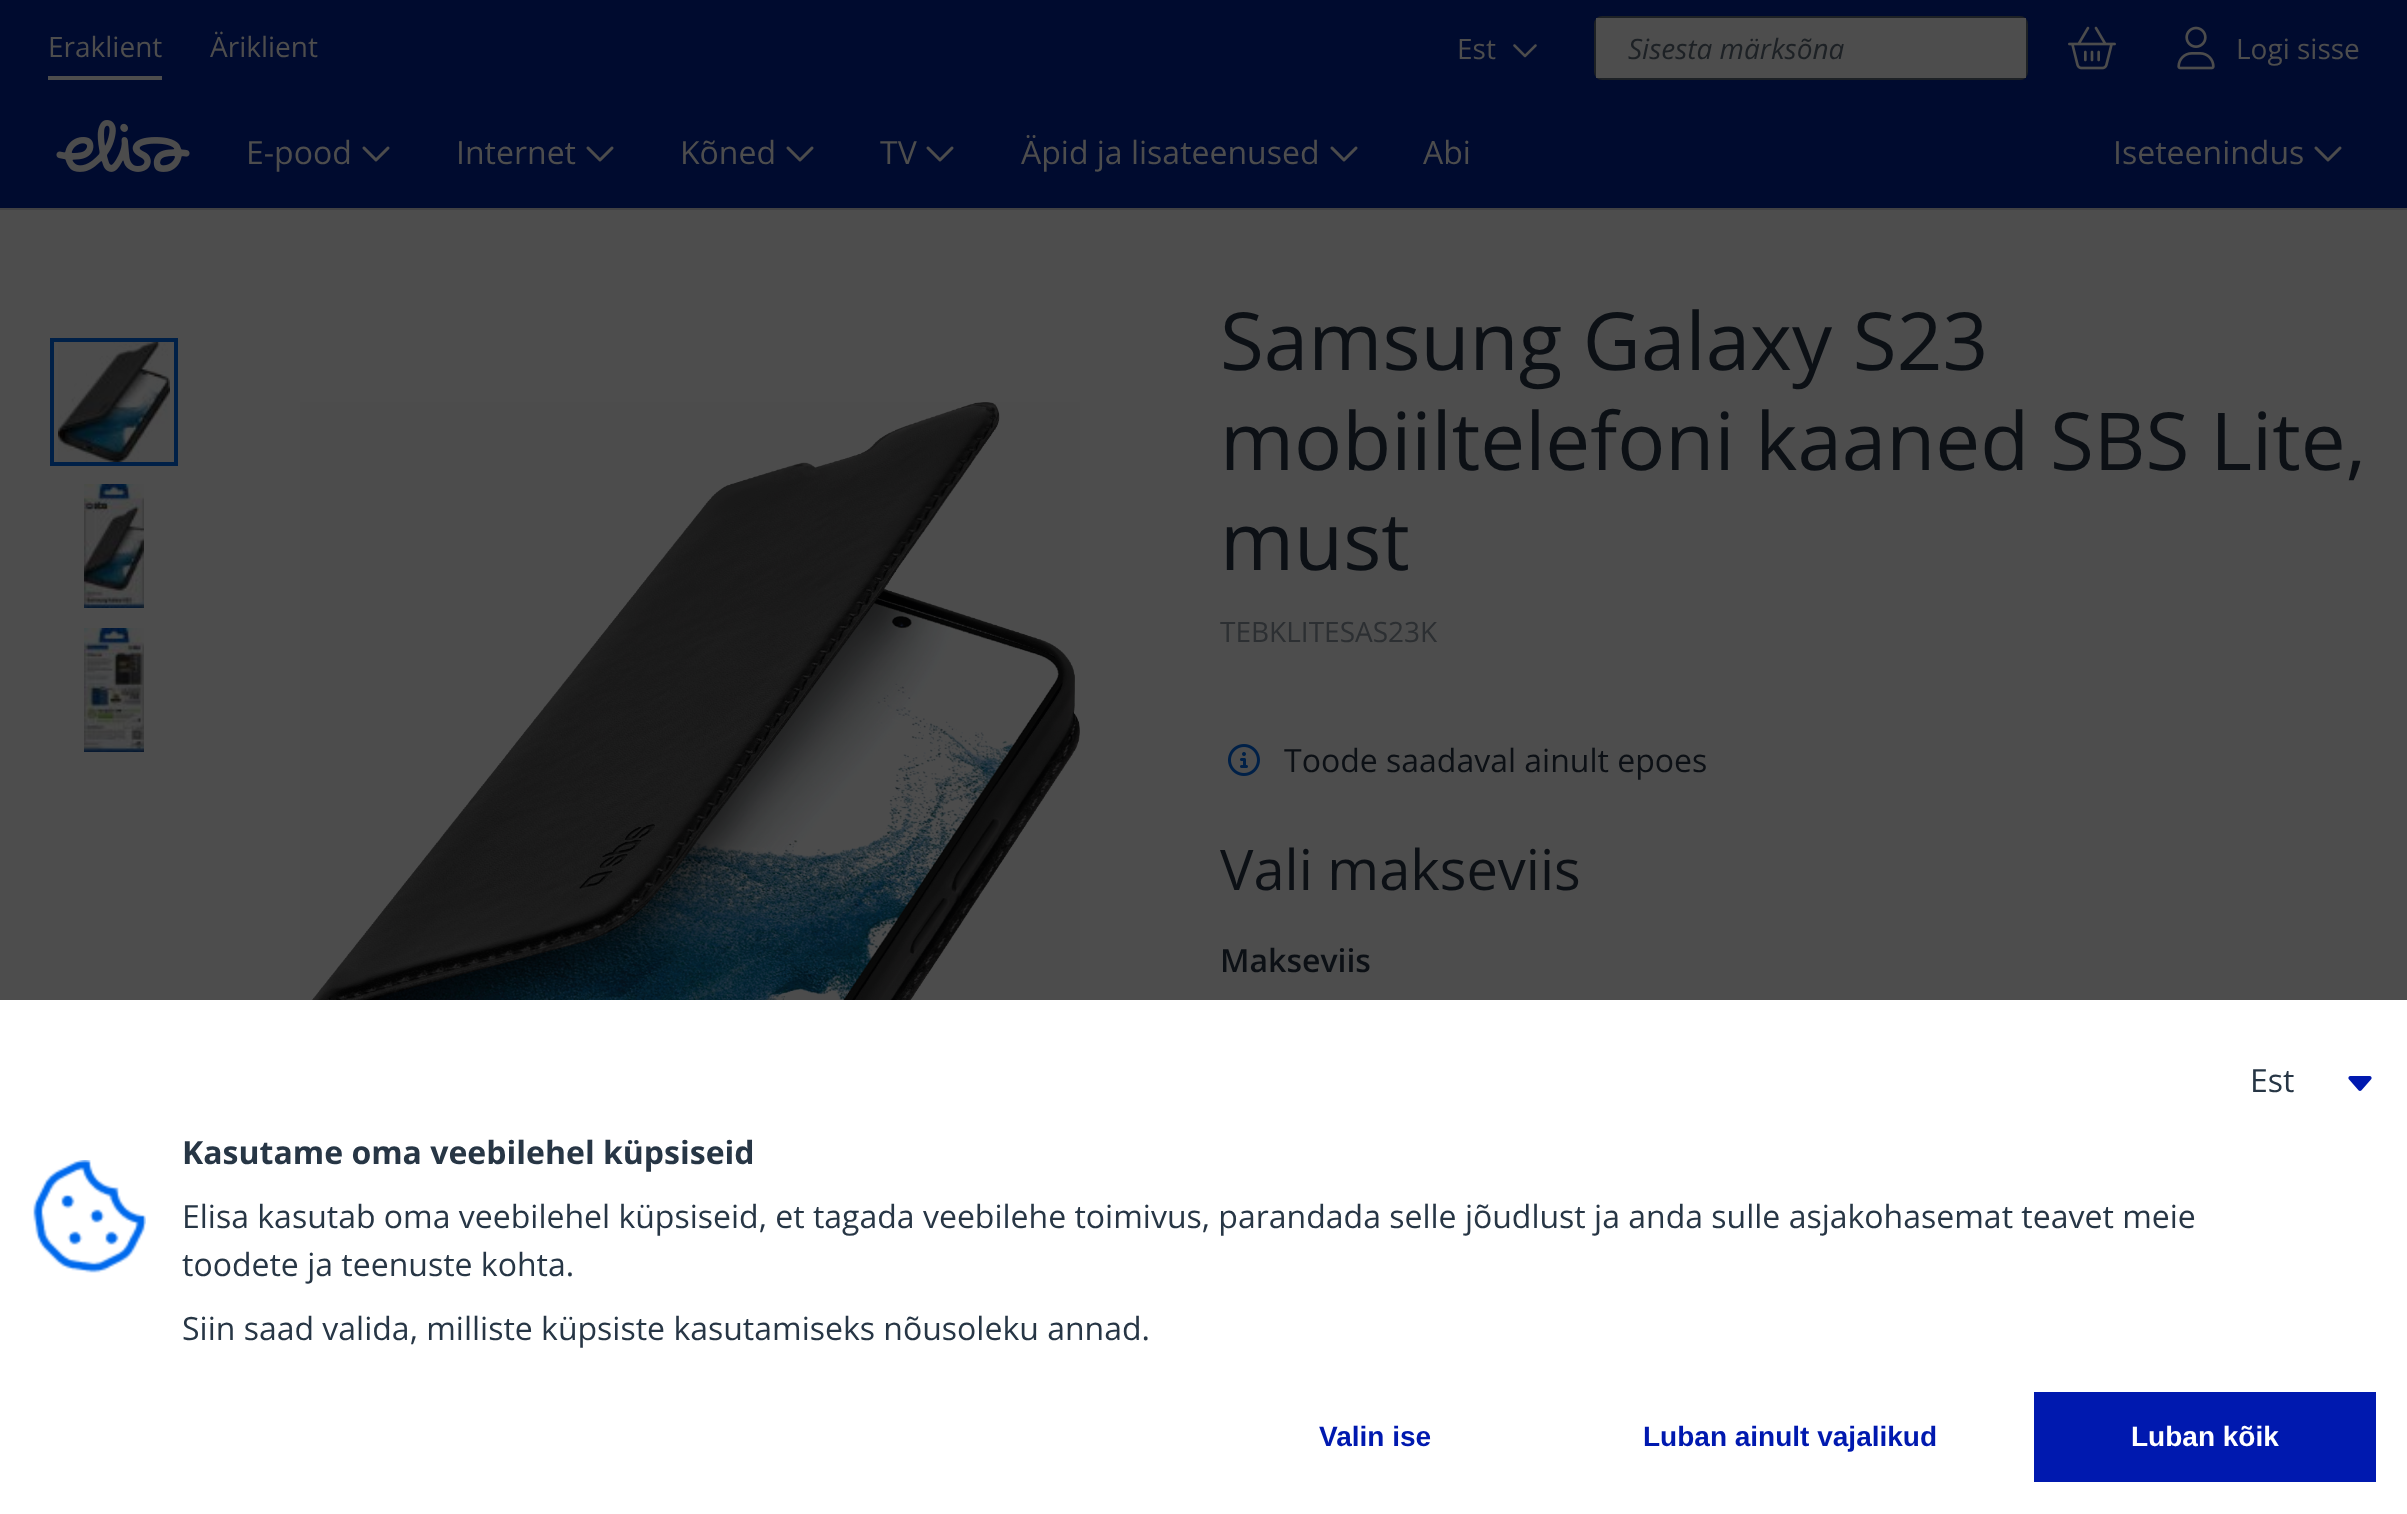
<!DOCTYPE html>
<meta charset="utf-8">
<style>body { margin: 0 } canvas { display: block }</style>
<canvas id="canvas" width="2407" height="1514"></canvas>
<img id="img1" src="img_01.png" hidden>
<img id="img2" src="img_02.png" hidden>
<img id="img3" src="img_03.png" hidden>
<img id="img4" src="img_04.png" hidden>
<img id="img5" src="img_05.png" hidden>
<img id="img6" src="img_06.png" hidden>
<img id="img7" src="img_07.png" hidden>
<img id="img8" src="img_08.png" hidden>
<img id="img9" src="img_09.png" hidden>
<img id="img10" src="img_10.png" hidden>
<img id="img11" src="img_11.png" hidden>
<img id="img12" src="img_12.png" hidden>
<script>
window.onload = function () {
	const canvas = document.getElementById("canvas");
	const ctx = canvas.getContext("2d");
	ctx.miterLimit = 4;
	ctx.fontKerning = "normal";
	function txt(s, x, y) {
		ctx.fillText(s, x, y);
	}
	function fill(x, y, w, h) {
		ctx.fillRect(x, y, w, h);
	}
	function img(id, x, y, w, h) {
		ctx.drawImage(document.getElementById(id), x, y, w, h);
	}

	ctx.fillStyle = "#4D4D4D";
	fill(0, 0, 2407, 1514);
	ctx.fillStyle = "#000B2F";
	fill(0, 0, 2407, 208);
	ctx.fillStyle = "#4D4D4D";
	fill(48, 76, 114, 4);
	img("img1", 1513, 44, 24, 14);
	ctx.beginPath();
	ctx.roundRect(1595, 17, 432, 62, 7);
	ctx.strokeStyle = "#1D2125";
	ctx.lineWidth = 2;
	ctx.stroke();
	fill(1596, 18, 430, 60);
	img("img2", 2068, 26, 48, 44);
	img("img3", 2177, 26, 38, 44);
	img("img4", 56, 120, 134, 52);
	img("img5", 362, 146, 28, 16);
	img("img5", 586, 146, 28, 16);
	img("img5", 786, 146, 28, 16);
	img("img5", 926, 146, 28, 16);
	img("img5", 1330, 146, 28, 16);
	img("img5", 2314, 146, 28, 16);
	ctx.fillStyle = "#414143";
	fill(0, 208, 2407, 2);
	ctx.strokeStyle = "#002047";
	ctx.lineWidth = 4;
	ctx.strokeRect(52, 340, 124, 124);
	img("img6", 58, 342, 112, 120);
	img("img7", 84, 484, 60, 124);
	img("img8", 84, 628, 60, 124);
	img("img9", 300, 402, 780, 598);
	img("img10", 1228, 744, 32, 32);
	ctx.fillStyle = "#FFFFFF";
	fill(0, 1000, 2407, 514);
	img("img11", 2348, 1076, 24, 15);
	img("img12", 33, 1160, 113, 113);
	ctx.fillStyle = "#0019AF";
	fill(2034, 1392, 342, 90);
	ctx.font = "28px Open Sans";
	ctx.fillStyle = "#4D4D4D";
	txt("Eraklient", 48, 57);
	txt("Äriklient", 210, 57);
	txt("Est", 1457, 59);
	ctx.font = "italic 28px Open Sans";
	ctx.fillStyle = "#1D2125";
	txt("Sisesta märksõna", 1628, 59);
	ctx.font = "28px Open Sans";
	ctx.fillStyle = "#4D4D4D";
	txt("Logi sisse", 2236, 59);
	ctx.font = "32px Open Sans";
	txt("E-pood", 246, 164);
	txt("Internet", 456, 164);
	txt("Kõned", 680, 164);
	txt("TV", 880, 164);
	txt("Äpid ja lisateenused", 1021, 164);
	txt("Abi", 1423, 164);
	txt("Iseteenindus", 2113, 164);
	ctx.font = "80px Open Sans";
	ctx.fillStyle = "#0C1015";
	txt("Samsung Galaxy S23", 1220, 370);
	txt("mobiiltelefoni kaaned SBS Lite,", 1220, 470);
	txt("must", 1220, 570);
	ctx.font = "28px Open Sans";
	ctx.fillStyle = "#2C2F32";
	txt("TEBKLITESAS23K", 1220, 642);
	ctx.font = "32px Open Sans";
	ctx.fillStyle = "#0C1015";
	txt("Toode saadaval ainult epoes", 1284, 772);
	ctx.font = "56px Open Sans";
	txt("Vali makseviis", 1220, 890);
	ctx.font = "600 32px Open Sans";
	txt("Makseviis", 1220, 972);
	ctx.font = "32px Open Sans";
	ctx.fillStyle = "#273645";
	txt("Est", 2250, 1092);
	ctx.font = "bold 32px Open Sans";
	txt("Kasutame oma veebilehel küpsiseid", 182, 1164);
	ctx.font = "32px Open Sans";
	txt("Elisa kasutab oma veebilehel küpsiseid, et tagada veebilehe toimivus, parandada selle jõudlust ja anda sulle asjakohasemat teavet meie", 182, 1228);
	txt("toodete ja teenuste kohta.", 182, 1276);
	txt("Siin saad valida, milliste küpsiste kasutamiseks nõusoleku annad.", 182, 1340);
	ctx.font = "bold 28px Liberation Sans";
	ctx.fillStyle = "#0019AF";
	txt("Valin ise", 1319, 1446);
	txt("Luban ainult vajalikud", 1643, 1446);
	ctx.fillStyle = "#FFFFFF";
	txt("Luban kõik", 2131, 1446);
};
</script>
